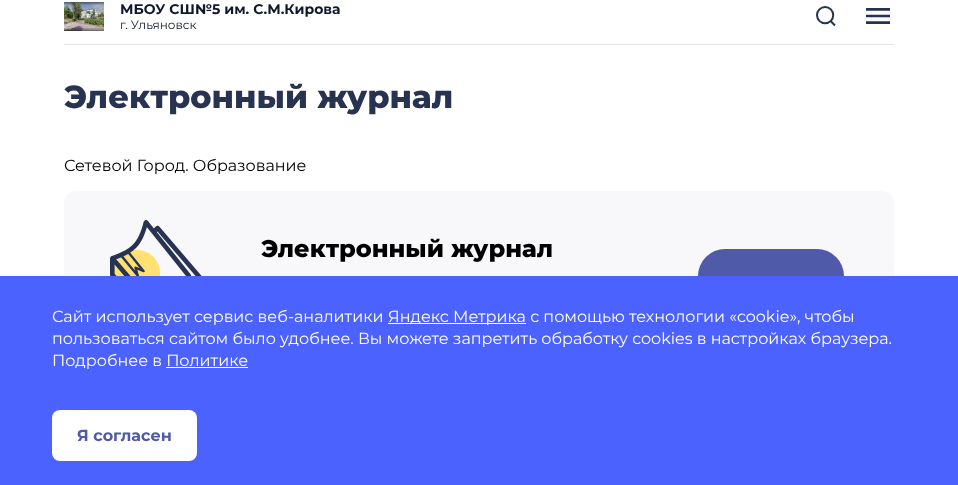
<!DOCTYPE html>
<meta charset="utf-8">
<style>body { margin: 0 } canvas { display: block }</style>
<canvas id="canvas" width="958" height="485"></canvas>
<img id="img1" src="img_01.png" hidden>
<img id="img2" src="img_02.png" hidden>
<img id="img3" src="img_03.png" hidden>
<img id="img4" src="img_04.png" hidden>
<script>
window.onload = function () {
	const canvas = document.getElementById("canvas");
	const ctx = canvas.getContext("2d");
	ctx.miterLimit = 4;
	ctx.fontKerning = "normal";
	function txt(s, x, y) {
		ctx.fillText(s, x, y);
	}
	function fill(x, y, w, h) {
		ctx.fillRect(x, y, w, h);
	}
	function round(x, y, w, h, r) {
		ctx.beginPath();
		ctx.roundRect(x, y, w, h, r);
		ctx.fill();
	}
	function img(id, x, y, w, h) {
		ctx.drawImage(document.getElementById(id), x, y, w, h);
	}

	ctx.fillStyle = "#FFFFFF";
	fill(0, 0, 958, 485);
	ctx.fillStyle = "#E3E3E3";
	fill(64, 44, 830, 1);
	img("img1", 64, 2, 40, 29);
	img("img2", 816, 6, 20, 21);
	img("img3", 866, 8, 24, 16);
	ctx.fillStyle = "#F8F8FA";
	round(64, 191, 830, 170, 12);
	img("img4", 110, 220, 92, 56);
	ctx.fillStyle = "#4F5AA8";
	round(698, 249, 146, 54, 27);
	ctx.fillStyle = "#4B62FF";
	fill(0, 276, 958, 209);
	ctx.fillStyle = "#FFFFFF";
	fill(388, 323, 138, 1);
	fill(166, 367, 82, 1);
	round(52, 410, 145, 51, 8);
	ctx.font = "bold 14px Montserrat";
	ctx.fillStyle = "#10182B";
	txt("МБОУ СШ№5 им. С.М.Кирова", 120, 14);
	ctx.font = "12px Montserrat";
	txt("г. Ульяновск", 120, 29);
	ctx.font = "800 32px Montserrat";
	ctx.fillStyle = "#273350";
	txt("Электронный журнал", 64, 108);
	ctx.font = "16px Montserrat";
	ctx.fillStyle = "#000000";
	txt("Сетевой Город. Образование", 64, 171);
	ctx.font = "800 24px Montserrat";
	txt("Электронный журнал", 261, 257);
	ctx.font = "16px Montserrat";
	ctx.fillStyle = "#FFFFFF";
	txt("Сайт использует сервис веб-аналитики", 52, 322);
	txt("Яндекс Метрика с помощью технологии «cookie», чтобы", 388, 322);
	txt("пользоваться сайтом было удобнее. Вы можете запретить обработку cookies в настройках браузера.", 52, 344);
	txt("Подробнее в Политике", 52, 366);
	ctx.font = "bold 16px Montserrat";
	ctx.fillStyle = "#4F5AA8";
	txt("Я согласен", 77, 441);
};
</script>
